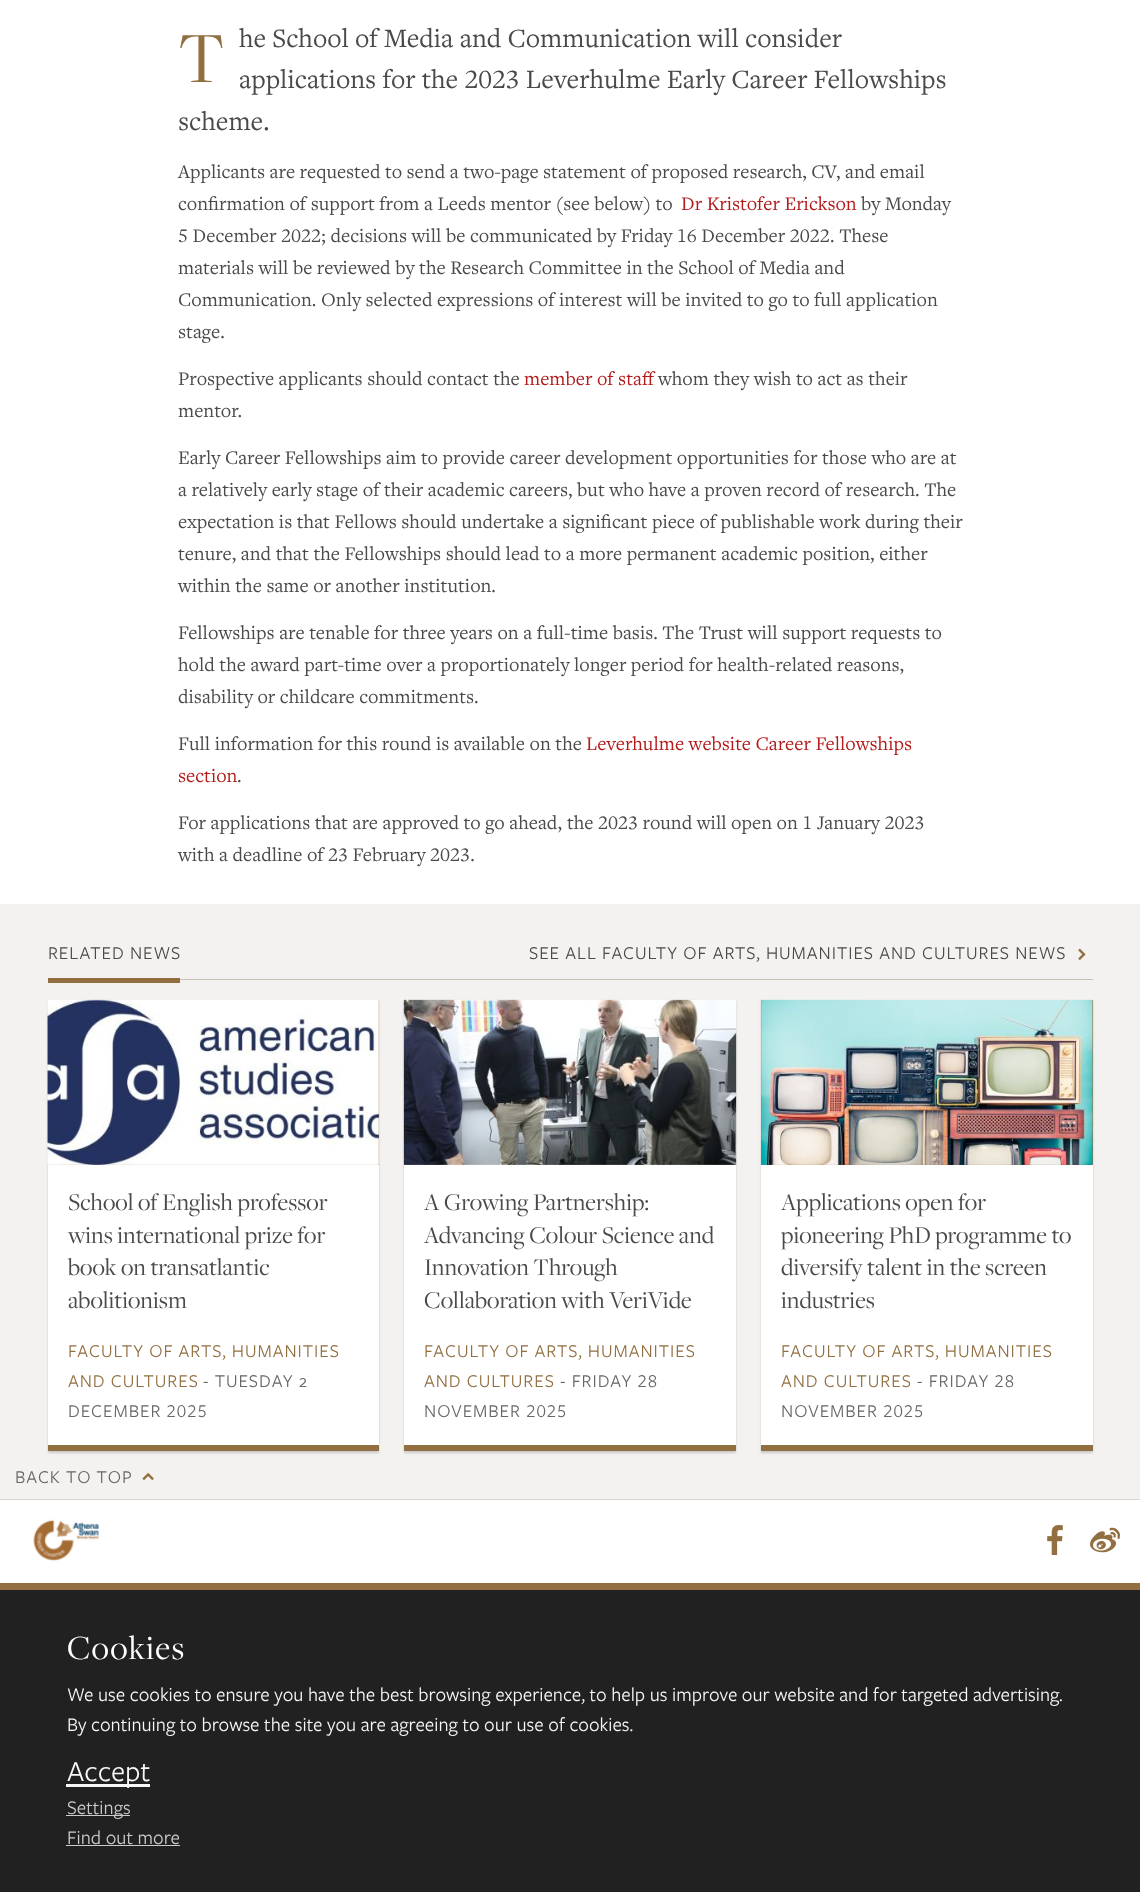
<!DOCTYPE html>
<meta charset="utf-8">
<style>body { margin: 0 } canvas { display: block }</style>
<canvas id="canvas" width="1140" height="1892"></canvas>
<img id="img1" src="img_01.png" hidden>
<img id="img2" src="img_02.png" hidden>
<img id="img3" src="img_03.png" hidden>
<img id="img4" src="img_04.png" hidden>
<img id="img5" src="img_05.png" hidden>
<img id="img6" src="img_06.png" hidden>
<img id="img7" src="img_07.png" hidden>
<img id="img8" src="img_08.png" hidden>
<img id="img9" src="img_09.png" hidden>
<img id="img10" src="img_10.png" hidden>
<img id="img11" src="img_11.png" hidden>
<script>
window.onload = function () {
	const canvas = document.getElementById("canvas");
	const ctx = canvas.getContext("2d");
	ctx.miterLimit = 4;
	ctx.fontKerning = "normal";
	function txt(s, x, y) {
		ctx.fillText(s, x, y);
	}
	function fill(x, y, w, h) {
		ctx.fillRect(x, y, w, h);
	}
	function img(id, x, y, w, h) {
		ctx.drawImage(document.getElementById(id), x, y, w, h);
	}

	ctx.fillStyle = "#FFFFFF";
	fill(0, 0, 1140, 1892);
	ctx.fillStyle = "#F4F2F0";
	fill(0, 904, 1140, 595);
	ctx.fillStyle = "#C9BFB5";
	fill(180, 979, 913, 1);
	ctx.fillStyle = "#916F40";
	fill(48, 978, 132, 5);
	img("img1", 1078, 948, 8, 13);
	ctx.fillStyle = "rgba(0, 0, 0, 0.17)";
	ctx.filter = "blur(1px)";
	ctx.beginPath();
	ctx.rect(48, 1001, 331, 452);
	ctx.fill();
	ctx.filter = "none";
	ctx.fillStyle = "#FFFFFF";
	fill(48, 1165, 331, 280);
	ctx.fillStyle = "#916F40";
	fill(48, 1445, 331, 6);
	fill(48, 1000, 331, 165);
	img("img2", 47, 999, 332, 166);
	img("img3", 47, 999, 332, 166);
	ctx.fillStyle = "rgba(0, 0, 0, 0.17)";
	ctx.filter = "blur(1px)";
	ctx.beginPath();
	ctx.rect(404, 1001, 332, 452);
	ctx.fill();
	ctx.filter = "none";
	ctx.fillStyle = "#FFFFFF";
	fill(404, 1164, 332, 281);
	ctx.fillStyle = "#916F40";
	fill(404, 1445, 332, 6);
	img("img4", 403, 999, 334, 166);
	img("img5", 403, 999, 334, 166);
	ctx.fillStyle = "rgba(0, 0, 0, 0.17)";
	ctx.filter = "blur(1px)";
	ctx.beginPath();
	ctx.rect(761, 1001, 332, 452);
	ctx.fill();
	ctx.filter = "none";
	ctx.fillStyle = "#FFFFFF";
	fill(761, 1165, 332, 280);
	ctx.fillStyle = "#916F40";
	fill(761, 1445, 332, 6);
	fill(761, 1000, 332, 165);
	img("img6", 761, 999, 332, 166);
	img("img7", 761, 999, 332, 166);
	img("img8", 142, 1472, 12, 9);
	ctx.fillStyle = "#DDD5CC";
	fill(0, 1499, 1140, 1);
	img("img9", 33, 1519, 66, 43);
	img("img10", 1047, 1525, 16, 30);
	img("img11", 1090, 1527, 30, 26);
	ctx.fillStyle = "#212121";
	fill(0, 1590, 1140, 302);
	ctx.fillStyle = "#916F40";
	fill(0, 1583, 1140, 7);
	ctx.fillStyle = "#F7F7F7";
	fill(66, 1784, 84, 3);
	ctx.fillStyle = "#CCCCCC";
	fill(66, 1815, 64, 1);
	fill(66, 1845, 114, 1);
	ctx.font = "75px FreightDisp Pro";
	ctx.fillStyle = "#916F40";
	txt("T", 178, 82);
	ctx.font = "27.5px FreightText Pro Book";
	ctx.fillStyle = "#4A4A4A";
	txt("he School of Media and Communication will consider", 239, 47);
	ctx.font = "27.5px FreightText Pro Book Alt";
	txt("applications for the 2023 Leverhulme Early Career Fellowships", 239, 88);
	ctx.font = "27.5px FreightText Pro Book";
	txt("scheme.", 178, 130);
	ctx.font = "20px FreightText Pro Book";
	txt("Applicants are requested to send a two-page statement of proposed research, CV, and email", 178, 178);
	txt("confirmation of support from a Leeds mentor (see below) to", 178, 210);
	ctx.fillStyle = "#B31B1B";
	txt("Dr Kristofer Erickson", 681, 210);
	ctx.fillStyle = "#4A4A4A";
	txt("by Monday", 861, 210);
	ctx.font = "20px FreightText Pro Book Alt";
	txt("5 December 2022; decisions will be communicated by Friday 16 December 2022. These", 178, 242);
	ctx.font = "20px FreightText Pro Book";
	txt("materials will be reviewed by the Research Committee in the School of Media and", 178, 274);
	txt("Communication. Only selected expressions of interest will be invited to go to full application", 178, 306);
	txt("stage.", 178, 338);
	txt("Prospective applicants should contact the", 178, 385);
	ctx.fillStyle = "#B31B1B";
	txt("member of staff", 524, 385);
	ctx.fillStyle = "#4A4A4A";
	txt("whom they wish to act as their", 658, 385);
	txt("mentor.", 178, 417);
	txt("Early Career Fellowships aim to provide career development opportunities for those who are at", 178, 464);
	txt("a relatively early stage of their academic careers, but who have a proven record of research. The", 178, 496);
	txt("expectation is that Fellows should undertake a significant piece of publishable work during their", 178, 528);
	txt("tenure, and that the Fellowships should lead to a more permanent academic position, either", 178, 560);
	txt("within the same or another institution.", 178, 592);
	txt("Fellowships are tenable for three years on a full-time basis. The Trust will support requests to", 178, 639);
	txt("hold the award part-time over a proportionately longer period for health-related reasons,", 178, 671);
	txt("disability or childcare commitments.", 178, 703);
	txt("Full information for this round is available on the", 178, 750);
	ctx.fillStyle = "#B31B1B";
	txt("Leverhulme website Career Fellowships", 586, 750);
	txt("section", 178, 782);
	ctx.fillStyle = "#4A4A4A";
	txt(".", 237, 782);
	ctx.font = "20px FreightText Pro Book Alt";
	txt("For applications that are approved to go ahead, the 2023 round will open on 1 January 2023", 178, 829);
	txt("with a deadline of 23 February 2023.", 178, 861);
	ctx.letterSpacing = "0.95px";
	ctx.font = "18.75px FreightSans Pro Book";
	txt("RELATED NEWS", 48, 959);
	txt("SEE ALL FACULTY OF ARTS, HUMANITIES AND CULTURES NEWS", 529, 959);
	ctx.letterSpacing = "0px";
	ctx.font = "25px FreightDisp Pro";
	txt("School of English professor", 68, 1210);
	txt("wins international prize for", 68, 1243);
	txt("book on transatlantic", 68, 1275);
	txt("abolitionism", 68, 1308);
	ctx.letterSpacing = "0.95px";
	ctx.font = "18.75px FreightSans Pro Book";
	ctx.fillStyle = "#916F40";
	txt("FACULTY OF ARTS, HUMANITIES", 68, 1357);
	txt("AND CULTURES", 68, 1387);
	ctx.fillStyle = "#666666";
	txt("- TUESDAY 2", 203, 1387);
	ctx.font = "18.75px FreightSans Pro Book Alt";
	txt("DECEMBER 2025", 68, 1417);
	ctx.letterSpacing = "0px";
	ctx.font = "25px FreightDisp Pro";
	ctx.fillStyle = "#4A4A4A";
	txt("A Growing Partnership:", 424, 1210);
	txt("Advancing Colour Science and", 424, 1243);
	txt("Innovation Through", 424, 1275);
	txt("Collaboration with VeriVide", 424, 1308);
	ctx.letterSpacing = "0.95px";
	ctx.font = "18.75px FreightSans Pro Book";
	ctx.fillStyle = "#916F40";
	txt("FACULTY OF ARTS, HUMANITIES", 424, 1357);
	txt("AND CULTURES", 424, 1387);
	ctx.font = "18.75px FreightSans Pro Book Alt";
	ctx.fillStyle = "#666666";
	txt("- FRIDAY 28", 560, 1387);
	txt("NOVEMBER 2025", 424, 1417);
	ctx.letterSpacing = "0px";
	ctx.font = "25px FreightDisp Pro";
	ctx.fillStyle = "#4A4A4A";
	txt("Applications open for", 781, 1210);
	txt("pioneering PhD programme to", 781, 1243);
	txt("diversify talent in the screen", 781, 1275);
	txt("industries", 781, 1308);
	ctx.letterSpacing = "0.95px";
	ctx.font = "18.75px FreightSans Pro Book";
	ctx.fillStyle = "#916F40";
	txt("FACULTY OF ARTS, HUMANITIES", 781, 1357);
	txt("AND CULTURES", 781, 1387);
	ctx.font = "18.75px FreightSans Pro Book Alt";
	ctx.fillStyle = "#666666";
	txt("- FRIDAY 28", 917, 1387);
	txt("NOVEMBER 2025", 781, 1417);
	ctx.font = "18.75px FreightSans Pro Book";
	txt("BACK TO TOP", 15, 1483);
	ctx.letterSpacing = "1.25px";
	ctx.font = "35px FreightDisp Pro";
	ctx.fillStyle = "#FFFFFF";
	txt("Cookies", 67, 1659);
	ctx.letterSpacing = "0px";
	ctx.font = "20px FreightSans Pro Book";
	ctx.fillStyle = "#F7F7F7";
	txt("We use cookies to ensure you have the best browsing experience, to help us improve our website and for targeted advertising.", 67, 1701);
	txt("By continuing to browse the site you are agreeing to our use of cookies.", 67, 1731);
	ctx.font = "30px FreightSans Pro Book";
	txt("Accept", 67, 1781);
	ctx.font = "20px FreightSans Pro Book";
	ctx.fillStyle = "#CCCCCC";
	txt("Settings", 67, 1814);
	txt("Find out more", 67, 1844);
};
</script>
